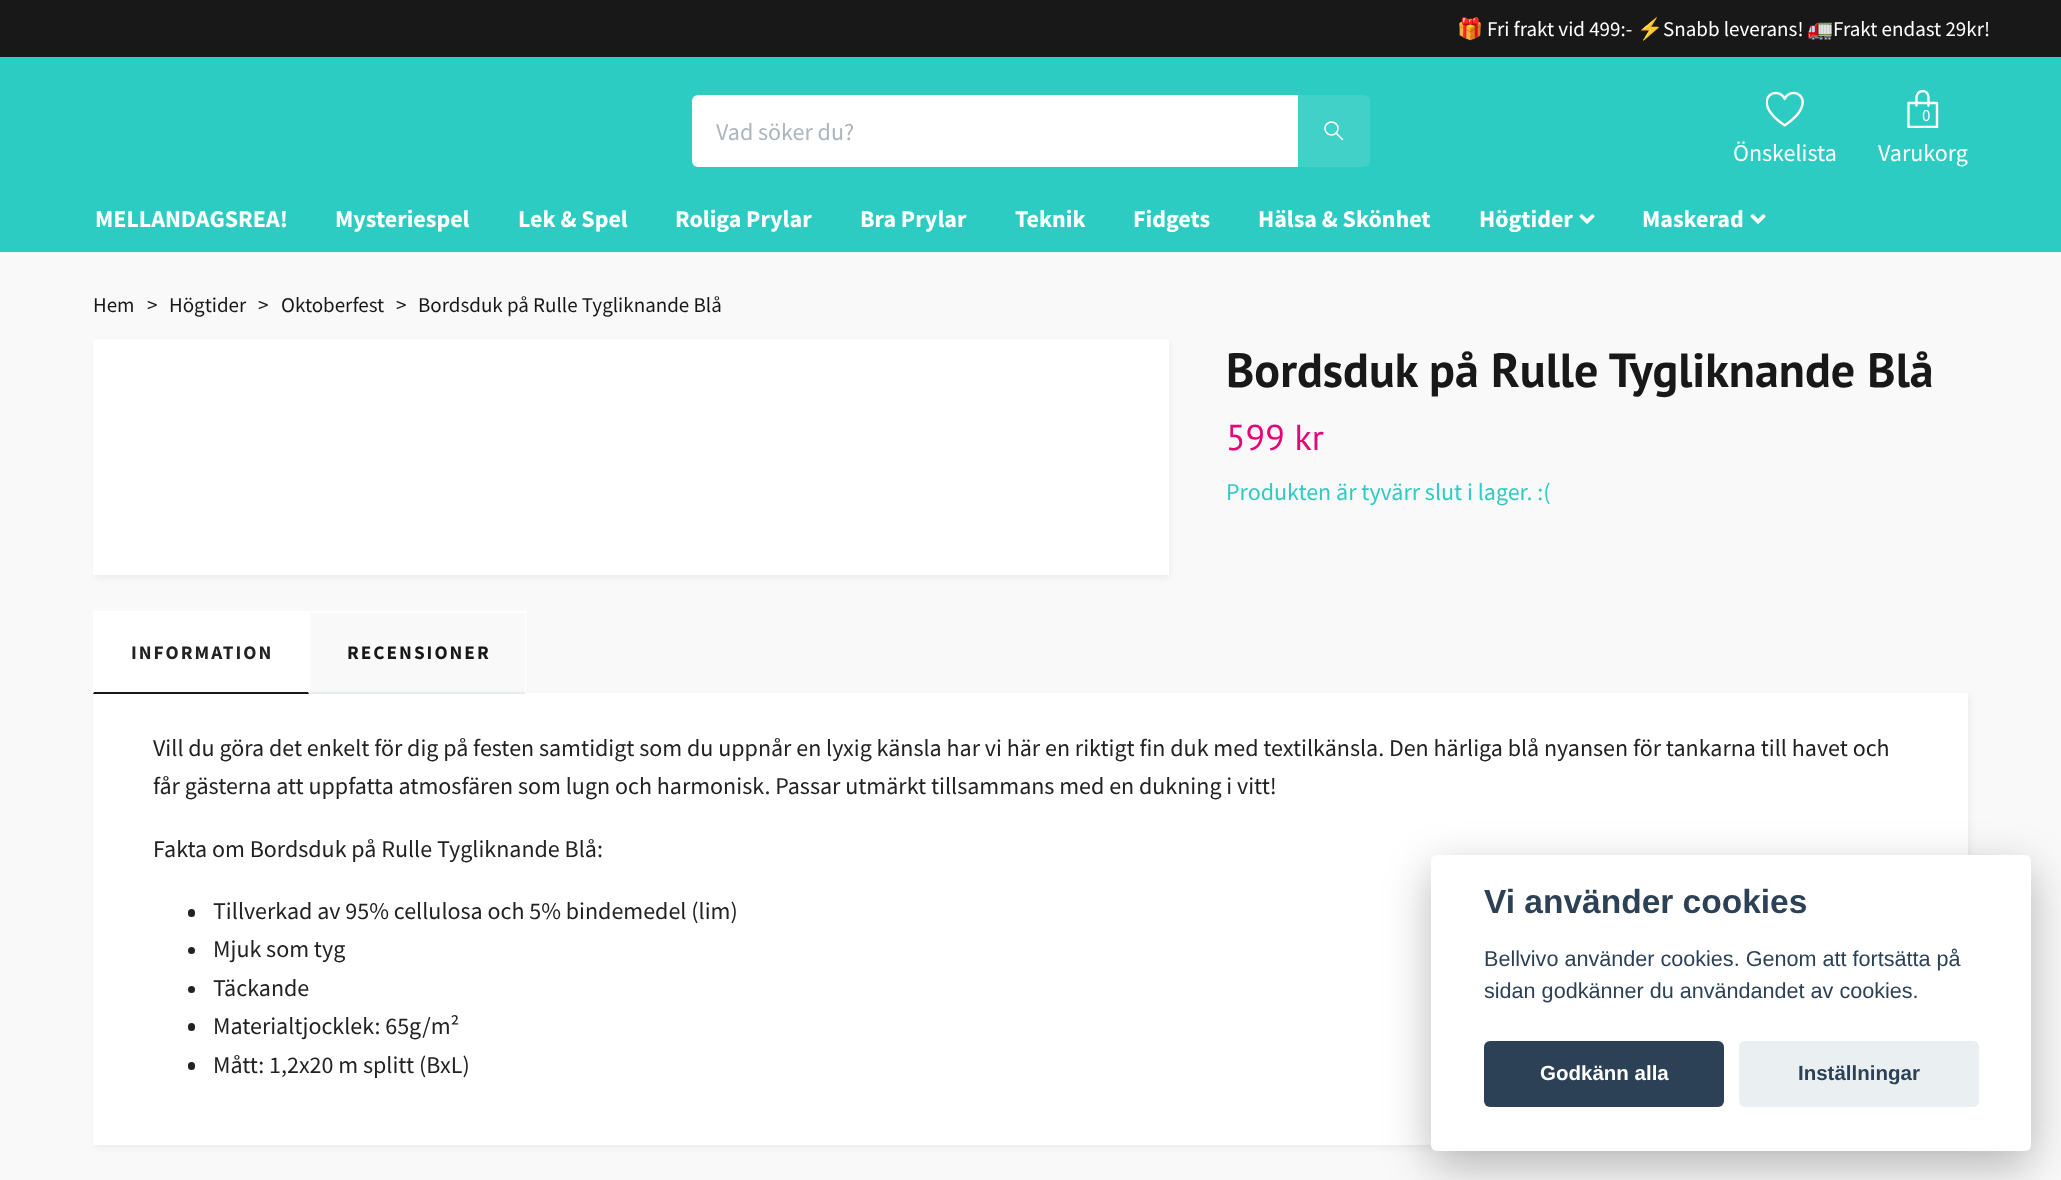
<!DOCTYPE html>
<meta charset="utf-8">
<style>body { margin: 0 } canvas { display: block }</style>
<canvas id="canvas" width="2061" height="1180"></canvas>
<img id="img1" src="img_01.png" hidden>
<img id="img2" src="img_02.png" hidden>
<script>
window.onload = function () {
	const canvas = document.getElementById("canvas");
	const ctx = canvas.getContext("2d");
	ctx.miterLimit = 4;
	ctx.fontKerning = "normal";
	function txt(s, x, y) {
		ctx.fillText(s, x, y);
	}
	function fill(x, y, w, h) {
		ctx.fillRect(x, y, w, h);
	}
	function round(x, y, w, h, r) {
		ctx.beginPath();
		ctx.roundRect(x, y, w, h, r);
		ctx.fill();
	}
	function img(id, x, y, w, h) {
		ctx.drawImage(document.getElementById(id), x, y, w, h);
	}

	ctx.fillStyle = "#F9F9FA";
	fill(0, 0, 2061, 1180);
	ctx.fillStyle = "#181818";
	fill(0, 0, 2061, 57);
	ctx.fillStyle = "#2CCCC3";
	fill(0, 57, 2061, 195);
	ctx.fillStyle = "#FFFFFF";
	ctx.beginPath();
	ctx.roundRect(692, 95, 606, 72, [6, 0, 0, 6]);
	ctx.fill();
	ctx.fillStyle = "#41D1C9";
	ctx.beginPath();
	ctx.roundRect(1298, 95, 72, 72, [0, 6, 6, 0]);
	ctx.fill();
	ctx.beginPath();
	ctx.moveTo(1336, 133);
	ctx.lineTo(1342.5, 139.5);
	ctx.strokeStyle = "#FFFFFF";
	ctx.lineWidth = 1.5;
	ctx.lineCap = "round";
	ctx.lineJoin = "round";
	ctx.stroke();
	ctx.beginPath();
	ctx.arc(1331.5, 128.5, 6.5, 0, Math.PI * 2);
	ctx.stroke();
	img("img1", 1766, 91, 38, 36);
	ctx.save();
	ctx.beginPath();
	ctx.rect(1904, 90, 38, 38);
	ctx.clip();
	ctx.beginPath();
	ctx.moveTo(1908.5, 103);
	ctx.lineTo(1937, 103);
	ctx.lineTo(1937, 127);
	ctx.lineTo(1908.5, 127);
	ctx.closePath();
	ctx.moveTo(1916.5, 105.5);
	ctx.lineTo(1916.5, 97);
	ctx.bezierCurveTo(1916.5, 94, 1919.5, 91, 1922.5, 91);
	ctx.bezierCurveTo(1926, 91, 1928.5, 94, 1928.5, 97);
	ctx.lineTo(1928.5, 105.5);
	ctx.lineWidth = 2.4;
	ctx.stroke();
	ctx.restore();
	img("img2", 1579, 214, 16, 10);
	img("img2", 1750, 214, 16, 10);
	ctx.fillStyle = "rgba(0, 0, 0, 0.05)";
	ctx.filter = "blur(3px)";
	ctx.beginPath();
	ctx.rect(95, 342, 1075, 236);
	ctx.fill();
	ctx.filter = "none";
	ctx.fillStyle = "#FFFFFF";
	fill(93, 339, 1076, 236);
	ctx.fillStyle = "rgba(0, 0, 0, 0.05)";
	ctx.filter = "blur(3px)";
	ctx.beginPath();
	ctx.rect(95, 696, 1875, 452);
	ctx.fill();
	ctx.filter = "none";
	ctx.fillStyle = "#FFFFFF";
	fill(93, 611, 216, 82);
	fill(93, 693, 1875, 452);
	ctx.fillStyle = "#181818";
	ctx.beginPath();
	ctx.moveTo(309, 694);
	ctx.lineTo(93, 694);
	ctx.lineTo(94, 692);
	ctx.lineTo(308, 692);
	ctx.closePath();
	ctx.fill();
	ctx.fillStyle = "#FFFFFF";
	fill(309, 611, 218, 2);
	ctx.beginPath();
	ctx.moveTo(526, 610);
	ctx.lineTo(526, 694);
	ctx.lineTo(525, 692);
	ctx.lineTo(525, 612);
	ctx.closePath();
	ctx.fill();
	ctx.fillStyle = "#E9ECEF";
	ctx.beginPath();
	ctx.moveTo(526, 694);
	ctx.lineTo(309, 694);
	ctx.lineTo(310, 692);
	ctx.lineTo(525, 692);
	ctx.closePath();
	ctx.fill();
	ctx.fillStyle = "#FFFFFF";
	ctx.beginPath();
	ctx.moveTo(309, 694);
	ctx.lineTo(309, 610);
	ctx.lineTo(310, 612);
	ctx.lineTo(310, 692);
	ctx.closePath();
	ctx.fill();
	ctx.fillStyle = "#222222";
	round(188, 909, 7, 8, 3.5);
	ctx.beginPath();
	ctx.arc(191.5, 950.5, 3.5, 0, Math.PI * 2);
	ctx.fill();
	ctx.beginPath();
	ctx.arc(191.5, 989.5, 3.5, 0, Math.PI * 2);
	ctx.fill();
	round(188, 1023, 7, 8, 3.5);
	round(188, 1062, 7, 8, 3.5);
	ctx.fillStyle = "rgba(2, 2, 3, 0.28)";
	ctx.filter = "blur(22.5px)";
	ctx.beginPath();
	ctx.roundRect(1431, 870, 600, 296, 6);
	ctx.fill();
	ctx.filter = "none";
	ctx.fillStyle = "#FFFFFF";
	round(1431, 855, 600, 296, 6);
	ctx.fillStyle = "#2D4156";
	round(1484, 1041, 240, 66, 6);
	ctx.fillStyle = "#EAEFF2";
	round(1739, 1041, 240, 66, 6);
	ctx.font = "21px Noto Color Emoji";
	ctx.fillStyle = "#FFFFFF";
	txt("🎁", 1457, 36);
	ctx.font = "21px Source Sans Pro";
	txt("Fri frakt vid 499:-", 1487, 36);
	ctx.font = "21px Noto Color Emoji";
	txt("⚡", 1637, 36);
	ctx.font = "21px Source Sans Pro";
	txt("Snabb leverans!", 1663, 36);
	ctx.font = "21px Noto Color Emoji";
	txt("🚛", 1807, 36);
	ctx.font = "21px Source Sans Pro";
	txt("Frakt endast 29kr!", 1833, 36);
	ctx.font = "24px Source Sans Pro";
	ctx.fillStyle = "#ADB5BD";
	txt("Vad söker du?", 716, 140);
	ctx.fillStyle = "#FFFFFF";
	txt("Önskelista", 1733, 161);
	ctx.font = "17px Source Sans Pro";
	txt("0", 1922, 121);
	ctx.font = "24px Source Sans Pro";
	txt("Varukorg", 1878, 161);
	ctx.font = "bold 24px Source Sans Pro";
	txt("MELLANDAGSREA!", 95, 227);
	txt("Mysteriespel", 335, 227);
	txt("Lek & Spel", 518, 227);
	txt("Roliga Prylar", 675, 227);
	txt("Bra Prylar", 860, 227);
	txt("Teknik", 1015, 227);
	txt("Fidgets", 1133, 227);
	txt("Hälsa & Skönhet", 1258, 227);
	txt("Högtider", 1479, 227);
	txt("Maskerad", 1642, 227);
	ctx.font = "21px Source Sans Pro";
	ctx.fillStyle = "#181818";
	txt("Hem", 93, 312);
	txt(">", 147, 312);
	txt("Högtider", 169, 312);
	txt(">", 258, 312);
	txt("Oktoberfest", 281, 312);
	txt(">", 396, 312);
	txt("Bordsduk på Rulle Tygliknande Blå", 418, 312);
	ctx.font = "bold 48px PT Sans";
	txt("Bordsduk på Rulle Tygliknande Blå", 1226, 387);
	ctx.font = "36px PT Sans";
	ctx.fillStyle = "#E60576";
	txt("599 kr", 1226, 450);
	ctx.font = "24px Source Sans Pro";
	ctx.fillStyle = "#2CCCC3";
	txt("Produkten är tyvärr slut i lager. :(", 1226, 500);
	ctx.letterSpacing = "2px";
	ctx.font = "bold 19.25px Source Sans Pro";
	ctx.fillStyle = "#222222";
	txt("INFORMATION", 131, 659);
	ctx.fillStyle = "#181818";
	txt("RECENSIONER", 347, 659);
	ctx.letterSpacing = "0px";
	ctx.font = "24px Source Sans Pro";
	ctx.fillStyle = "#222222";
	txt("Vill du göra det enkelt för dig på festen samtidigt som du uppnår en lyxig känsla har vi här en riktigt fin duk med textilkänsla. Den härliga blå nyansen för tankarna till havet och", 153, 756);
	txt("får gästerna att uppfatta atmosfären som lugn och harmonisk. Passar utmärkt tillsammans med en dukning i vitt!", 153, 794);
	txt("Fakta om Bordsduk på Rulle Tygliknande Blå:", 153, 857);
	txt("Tillverkad av 95% cellulosa och 5% bindemedel (lim)", 213, 919);
	txt("Mjuk som tyg", 213, 957);
	txt("Täckande", 213, 996);
	txt("Materialtjocklek: 65g/m²", 213, 1034);
	txt("Mått: 1,2x20 m splitt (BxL)", 213, 1073);
	ctx.font = "bold 33.5px Liberation Sans";
	ctx.fillStyle = "#2D4156";
	txt("Vi använder cookies", 1484, 913);
	ctx.font = "21.6px Liberation Sans";
	txt("Bellvivo använder cookies. Genom att fortsätta på", 1484, 966);
	txt("sidan godkänner du användandet av cookies.", 1484, 998);
	ctx.font = "bold 20.5px Liberation Sans";
	ctx.fillStyle = "#FFFFFF";
	txt("Godkänn alla", 1540, 1080);
	ctx.fillStyle = "#2D4156";
	txt("Inställningar", 1798, 1080);
};
</script>
